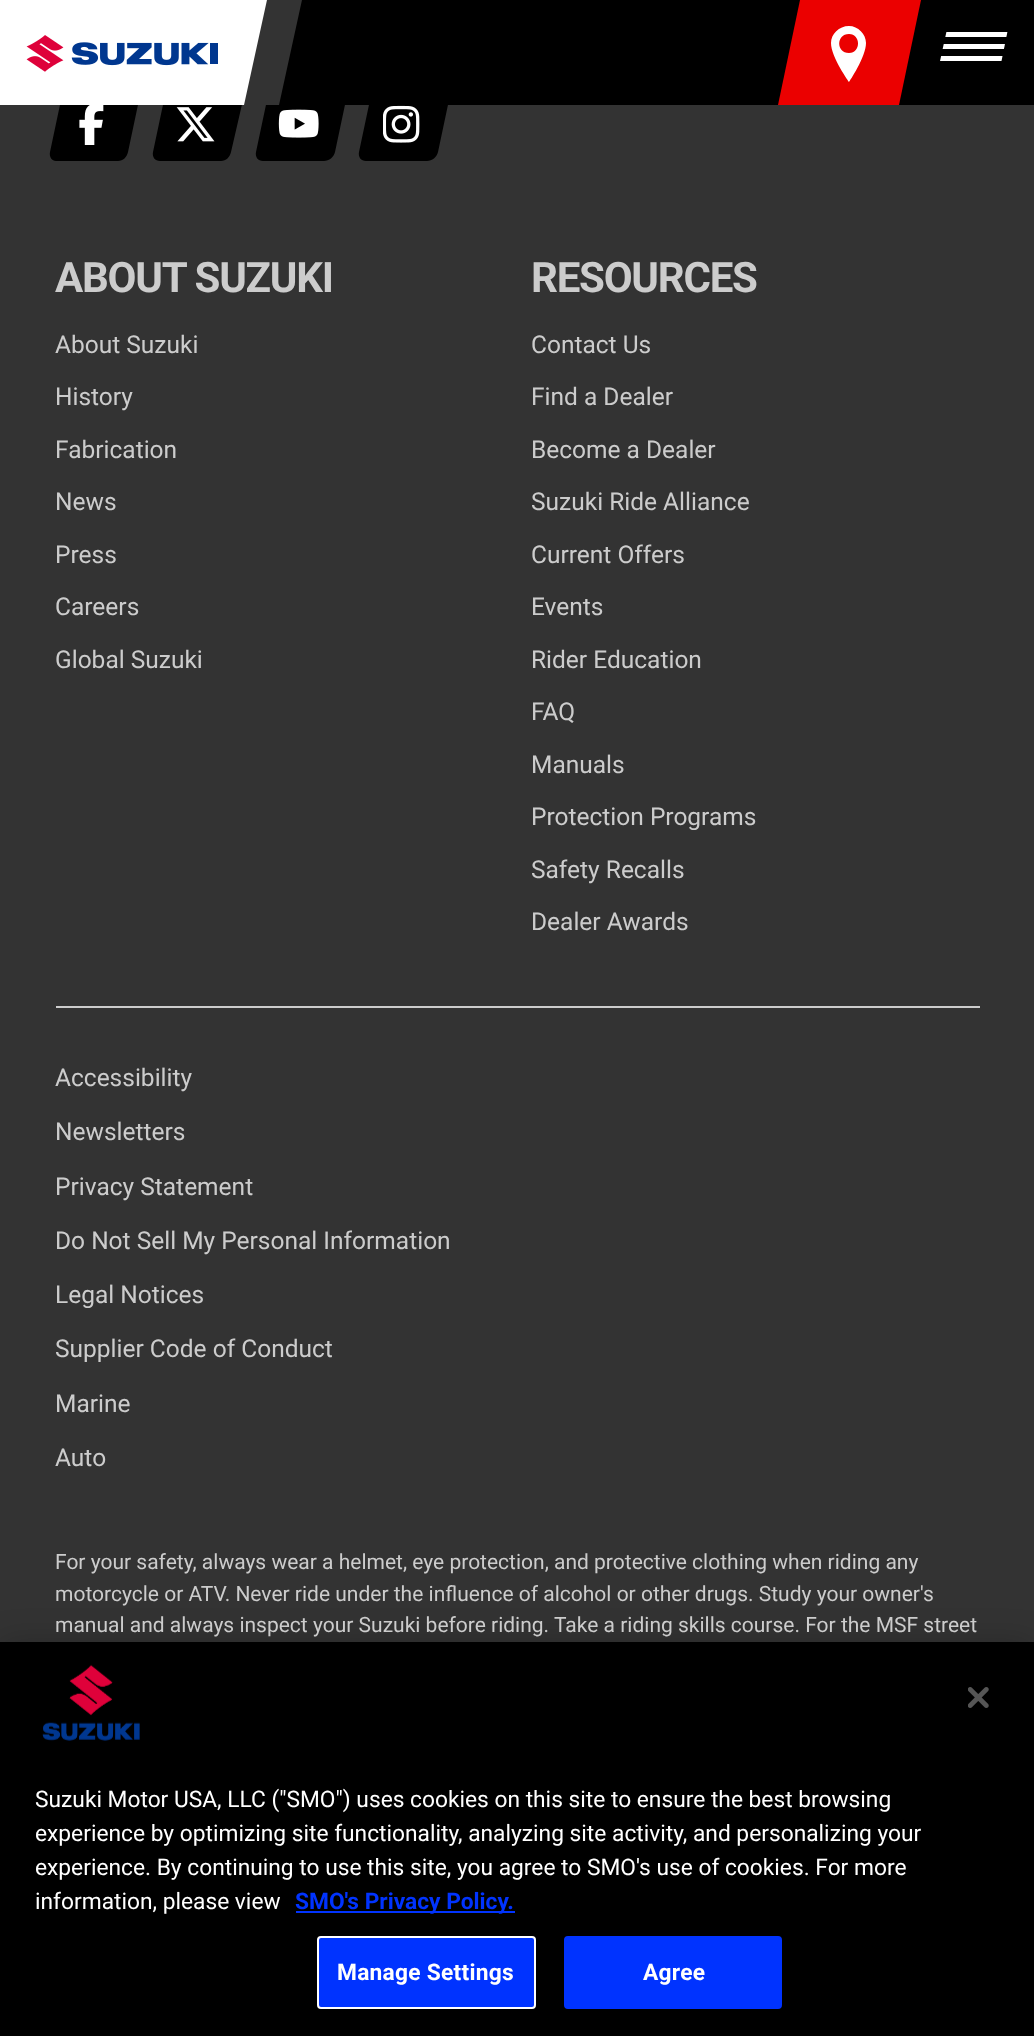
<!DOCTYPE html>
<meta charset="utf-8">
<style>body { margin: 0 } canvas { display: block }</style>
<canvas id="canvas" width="1034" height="2036"></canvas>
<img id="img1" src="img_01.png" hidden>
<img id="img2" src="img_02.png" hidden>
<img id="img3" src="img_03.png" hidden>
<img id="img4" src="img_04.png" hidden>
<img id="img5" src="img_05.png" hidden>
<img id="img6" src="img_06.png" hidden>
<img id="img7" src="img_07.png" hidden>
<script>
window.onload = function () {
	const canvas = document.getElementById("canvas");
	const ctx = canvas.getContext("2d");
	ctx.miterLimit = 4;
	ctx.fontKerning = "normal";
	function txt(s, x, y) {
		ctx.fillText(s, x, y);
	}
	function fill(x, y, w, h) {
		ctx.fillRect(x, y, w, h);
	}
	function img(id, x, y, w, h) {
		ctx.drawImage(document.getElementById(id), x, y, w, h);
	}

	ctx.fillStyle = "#333333";
	fill(0, 0, 1034, 2036);
	ctx.fillStyle = "#000000";
	ctx.beginPath();
	ctx.moveTo(278, 91);
	ctx.lineTo(339, 91);
	ctx.bezierCurveTo(344, 91, 347, 95, 346, 100);
	ctx.lineTo(335, 152);
	ctx.bezierCurveTo(334, 157, 329, 161, 324, 161);
	ctx.lineTo(263, 161);
	ctx.bezierCurveTo(258, 161, 255, 157, 256, 152);
	ctx.lineTo(267, 100);
	ctx.bezierCurveTo(268, 95, 273, 91, 278, 91);
	ctx.closePath();
	ctx.fill();
	ctx.beginPath();
	ctx.moveTo(381, 91);
	ctx.lineTo(442, 91);
	ctx.bezierCurveTo(447, 91, 450, 95, 449, 100);
	ctx.lineTo(438, 152);
	ctx.bezierCurveTo(437, 157, 432, 161, 427, 161);
	ctx.lineTo(366, 161);
	ctx.bezierCurveTo(361, 161, 358, 157, 359, 152);
	ctx.lineTo(370, 100);
	ctx.bezierCurveTo(371, 95, 376, 91, 381, 91);
	ctx.closePath();
	ctx.fill();
	fill(279, 0, 755, 105);
	ctx.beginPath();
	ctx.moveTo(71, 91);
	ctx.lineTo(133, 91);
	ctx.bezierCurveTo(137, 91, 140, 95, 139, 100);
	ctx.lineTo(128, 152);
	ctx.bezierCurveTo(127, 157, 123, 161, 118, 161);
	ctx.lineTo(56, 161);
	ctx.bezierCurveTo(52, 161, 49, 157, 50, 152);
	ctx.lineTo(61, 100);
	ctx.bezierCurveTo(62, 95, 66, 91, 71, 91);
	ctx.closePath();
	ctx.fill();
	ctx.beginPath();
	ctx.moveTo(175, 91);
	ctx.lineTo(236, 91);
	ctx.bezierCurveTo(241, 91, 244, 95, 243, 100);
	ctx.lineTo(231, 152);
	ctx.bezierCurveTo(230, 157, 226, 161, 221, 161);
	ctx.lineTo(160, 161);
	ctx.bezierCurveTo(155, 161, 152, 157, 153, 152);
	ctx.lineTo(164, 100);
	ctx.bezierCurveTo(165, 95, 170, 91, 175, 91);
	ctx.closePath();
	ctx.fill();
	ctx.fillStyle = "#FFFFFF";
	fill(0, 0, 267, 105);
	img("img1", 26, 35, 192, 37);
	ctx.fillStyle = "#333333";
	ctx.beginPath();
	ctx.moveTo(267, 0);
	ctx.lineTo(302, 0);
	ctx.lineTo(279, 105);
	ctx.lineTo(244, 105);
	ctx.closePath();
	ctx.fill();
	ctx.fillStyle = "#EB0000";
	fill(820, 0, 59, 105);
	ctx.beginPath();
	ctx.moveTo(800, 0);
	ctx.lineTo(842, 0);
	ctx.lineTo(820, 105);
	ctx.lineTo(778, 105);
	ctx.closePath();
	ctx.fill();
	ctx.fillStyle = "#FFFFFF";
	ctx.beginPath();
	ctx.moveTo(849, 26);
	ctx.bezierCurveTo(839, 26, 831, 34, 831, 43);
	ctx.bezierCurveTo(831, 57, 849, 82, 849, 82);
	ctx.bezierCurveTo(849, 82, 866, 57, 866, 43);
	ctx.bezierCurveTo(866, 34, 858, 26, 849, 26);
	ctx.closePath();
	ctx.moveTo(849, 53);
	ctx.bezierCurveTo(836, 53, 836, 34, 849, 34);
	ctx.bezierCurveTo(861, 34, 861, 53, 849, 53);
	ctx.closePath();
	ctx.fill();
	ctx.fillStyle = "#EB0000";
	ctx.beginPath();
	ctx.moveTo(879, 0);
	ctx.lineTo(921, 0);
	ctx.lineTo(899, 105);
	ctx.lineTo(857, 105);
	ctx.closePath();
	ctx.fill();
	ctx.fillStyle = "#FFFFFF";
	fill(940, 44, 68, 5);
	fill(940, 32, 68, 5);
	fill(940, 56, 68, 5);
	ctx.fillStyle = "#000000";
	ctx.beginPath();
	ctx.moveTo(936, 31.5);
	ctx.lineTo(946.5, 31.5);
	ctx.lineTo(940, 61);
	ctx.lineTo(929.5, 61);
	ctx.closePath();
	ctx.fill();
	ctx.beginPath();
	ctx.moveTo(1007.5, 31.5);
	ctx.lineTo(1018, 31.5);
	ctx.lineTo(1012, 61);
	ctx.lineTo(1001.5, 61);
	ctx.closePath();
	ctx.fill();
	img("img2", 79, 105, 25, 40);
	img("img3", 176, 107, 39, 35);
	img("img4", 278, 109, 41, 29);
	img("img5", 383, 105, 37, 38);
	ctx.fillStyle = "#CCCCCC";
	fill(56, 1006, 924, 2);
	ctx.fillStyle = "rgba(0, 0, 0, 0.2)";
	ctx.filter = "blur(16px)";
	ctx.beginPath();
	ctx.rect(0, 1642, 1034, 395);
	ctx.fill();
	ctx.filter = "none";
	ctx.fillStyle = "#000000";
	fill(0, 1642, 1034, 394);
	img("img6", 968, 1687, 21, 21);
	img("img7", 42, 1664, 98, 77);
	ctx.fillStyle = "#0033FF";
	fill(296, 1911, 219, 2);
	ctx.beginPath();
	ctx.roundRect(318, 1937, 217, 71, 3);
	ctx.fill();
	ctx.strokeStyle = "#FFFFFF";
	ctx.lineWidth = 2;
	ctx.stroke();
	ctx.beginPath();
	ctx.roundRect(565, 1937, 216, 71, 3);
	ctx.fill();
	ctx.strokeStyle = "#0033FF";
	ctx.stroke();
	ctx.letterSpacing = "-1.25px";
	ctx.font = "bold 42px Roboto";
	ctx.fillStyle = "#CCCCCC";
	txt("ABOUT SUZUKI", 55, 292);
	ctx.letterSpacing = "0px";
	ctx.font = "24.5px Roboto";
	txt("About Suzuki", 55, 353);
	txt("History", 55, 405);
	txt("Fabrication", 55, 458);
	txt("News", 55, 510);
	txt("Press", 55, 563);
	txt("Careers", 55, 615);
	txt("Global Suzuki", 55, 668);
	ctx.letterSpacing = "-1.25px";
	ctx.font = "bold 42px Roboto";
	txt("RESOURCES", 531, 292);
	ctx.letterSpacing = "0px";
	ctx.font = "24.5px Roboto";
	txt("Contact Us", 531, 353);
	txt("Find a Dealer", 531, 405);
	txt("Become a Dealer", 531, 458);
	txt("Suzuki Ride Alliance", 531, 510);
	txt("Current Offers", 531, 563);
	txt("Events", 531, 615);
	txt("Rider Education", 531, 668);
	txt("FAQ", 531, 720);
	txt("Manuals", 531, 773);
	txt("Protection Programs", 531, 825);
	txt("Safety Recalls", 531, 878);
	txt("Dealer Awards", 531, 930);
	txt("Accessibility", 55, 1086);
	txt("Newsletters", 55, 1140);
	txt("Privacy Statement", 55, 1195);
	txt("Do Not Sell My Personal Information", 55, 1249);
	txt("Legal Notices", 55, 1303);
	txt("Supplier Code of Conduct", 55, 1357);
	txt("Marine", 55, 1412);
	txt("Auto", 55, 1466);
	ctx.font = "21px Roboto";
	txt("For your safety, always wear a helmet, eye protection, and protective clothing when riding any", 55, 1569);
	txt("motorcycle or ATV. Never ride under the influence of alcohol or other drugs. Study your owner's", 55, 1601);
	txt("manual and always inspect your Suzuki before riding.", 55, 1632);
	txt("Take a riding skills course. For the MSF street", 554, 1632);
	ctx.font = "22.75px Roboto";
	ctx.fillStyle = "#FFFFFF";
	txt("Suzuki Motor USA, LLC (\"SMO\") uses cookies on this site to ensure the best browsing", 35, 1807);
	txt("experience by optimizing site functionality, analyzing site activity, and personalizing your", 35, 1841);
	txt("experience. By continuing to use this site, you agree to SMO's use of cookies. For more", 35, 1875);
	txt("information, please view", 35, 1909);
	ctx.font = "bold 22.75px Roboto";
	ctx.fillStyle = "#0033FF";
	txt("SMO's Privacy Policy.", 295, 1909);
	ctx.letterSpacing = "0.25px";
	ctx.fillStyle = "#FFFFFF";
	txt("Manage Settings", 337, 1980);
	txt("Agree", 643, 1980);
};
</script>
